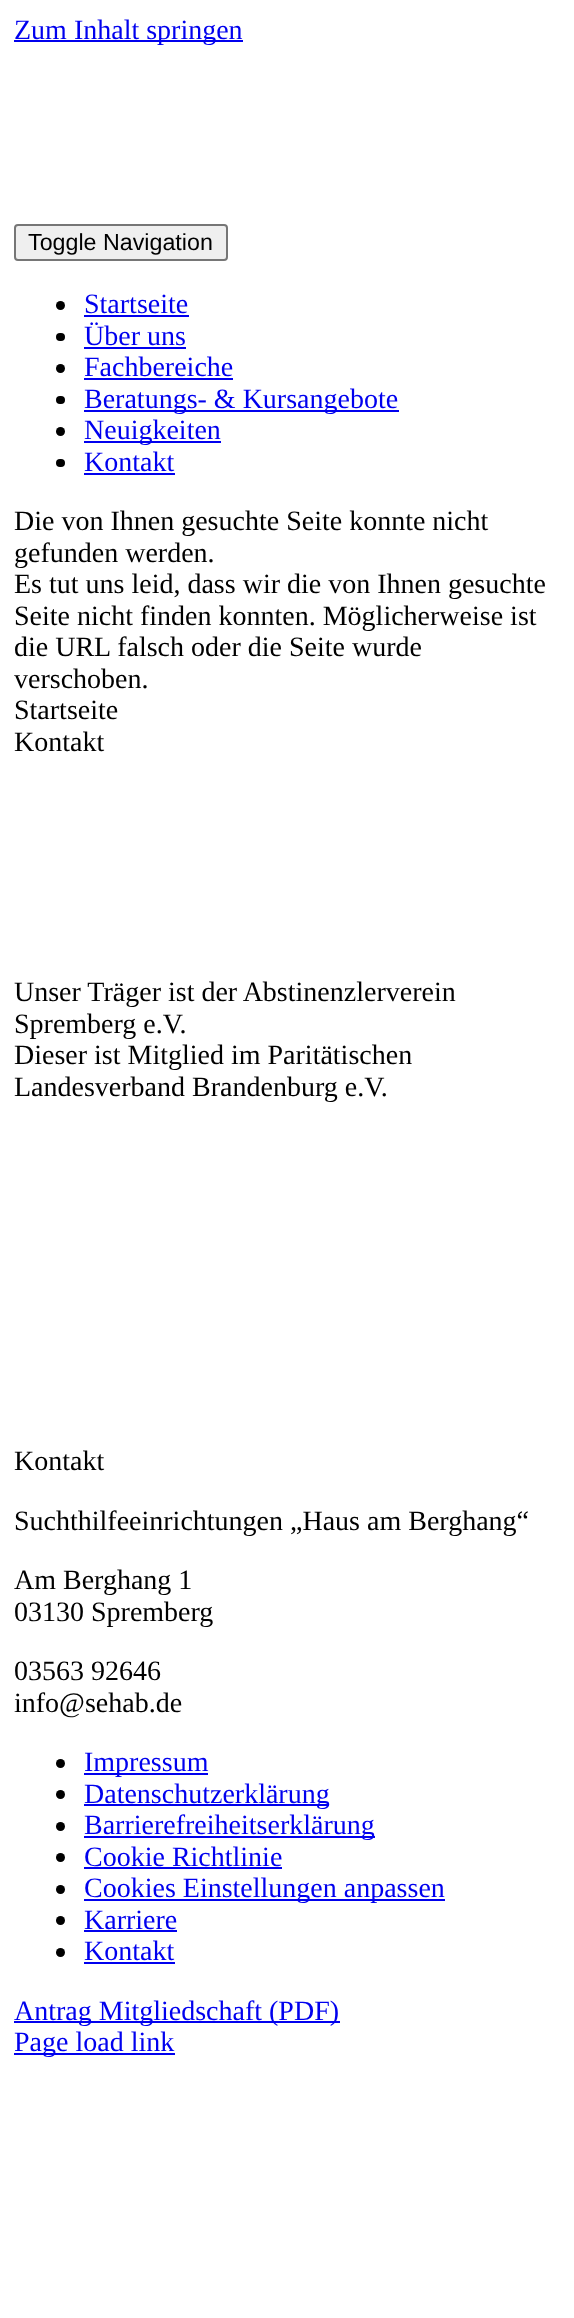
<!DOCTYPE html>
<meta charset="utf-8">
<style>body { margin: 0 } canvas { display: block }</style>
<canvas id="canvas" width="574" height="2318"></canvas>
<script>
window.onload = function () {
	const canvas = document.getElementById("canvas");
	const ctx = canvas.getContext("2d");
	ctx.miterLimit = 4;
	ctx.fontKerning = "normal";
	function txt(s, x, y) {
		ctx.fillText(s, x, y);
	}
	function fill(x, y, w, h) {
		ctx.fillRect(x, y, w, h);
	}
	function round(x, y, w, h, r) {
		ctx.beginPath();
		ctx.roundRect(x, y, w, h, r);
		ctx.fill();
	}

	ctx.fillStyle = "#FFFFFF";
	fill(0, 0, 574, 2318);
	ctx.fillStyle = "#0000EE";
	fill(14, 40, 229, 2);
	ctx.fillStyle = "#EFEFEF";
	ctx.beginPath();
	ctx.roundRect(15, 225, 212, 35, 3);
	ctx.fill();
	ctx.strokeStyle = "#767676";
	ctx.lineWidth = 2;
	ctx.stroke();
	ctx.fillStyle = "#000000";
	ctx.beginPath();
	ctx.arc(60.5, 305.5, 4.5, 0, Math.PI * 2);
	ctx.fill();
	ctx.fillStyle = "#0000EE";
	fill(84, 315, 105, 2);
	ctx.fillStyle = "#000000";
	round(56, 333, 9, 8, 4);
	ctx.fillStyle = "#0000EE";
	fill(84, 347, 102, 2);
	ctx.fillStyle = "#000000";
	ctx.beginPath();
	ctx.arc(60.5, 368.5, 4.5, 0, Math.PI * 2);
	ctx.fill();
	ctx.fillStyle = "#0000EE";
	fill(84, 378, 149, 2);
	ctx.fillStyle = "#000000";
	round(56, 396, 9, 8, 4);
	ctx.fillStyle = "#0000EE";
	fill(84, 410, 315, 2);
	ctx.fillStyle = "#000000";
	ctx.beginPath();
	ctx.arc(60.5, 431.5, 4.5, 0, Math.PI * 2);
	ctx.fill();
	ctx.fillStyle = "#0000EE";
	fill(84, 441, 137, 2);
	ctx.fillStyle = "#000000";
	round(56, 459, 9, 8, 4);
	ctx.fillStyle = "#0000EE";
	fill(84, 473, 91, 2);
	ctx.fillStyle = "#000000";
	ctx.beginPath();
	ctx.arc(60.5, 1763.5, 4.5, 0, Math.PI * 2);
	ctx.fill();
	ctx.fillStyle = "#0000EE";
	fill(84, 1773, 124, 2);
	ctx.fillStyle = "#000000";
	ctx.beginPath();
	ctx.arc(60.5, 1794.5, 4.5, 0, Math.PI * 2);
	ctx.fill();
	ctx.fillStyle = "#0000EE";
	fill(84, 1804, 245, 2);
	ctx.fillStyle = "#000000";
	ctx.beginPath();
	ctx.arc(60.5, 1826.5, 4.5, 0, Math.PI * 2);
	ctx.fill();
	ctx.fillStyle = "#0000EE";
	fill(84, 1836, 291, 2);
	ctx.fillStyle = "#000000";
	ctx.beginPath();
	ctx.arc(60.5, 1857.5, 4.5, 0, Math.PI * 2);
	ctx.fill();
	ctx.fillStyle = "#0000EE";
	fill(84, 1867, 198, 2);
	ctx.fillStyle = "#000000";
	ctx.beginPath();
	ctx.arc(60.5, 1889.5, 4.5, 0, Math.PI * 2);
	ctx.fill();
	ctx.fillStyle = "#0000EE";
	fill(84, 1899, 361, 2);
	ctx.fillStyle = "#000000";
	ctx.beginPath();
	ctx.arc(60.5, 1920.5, 4.5, 0, Math.PI * 2);
	ctx.fill();
	ctx.fillStyle = "#0000EE";
	fill(84, 1930, 93, 2);
	ctx.fillStyle = "#000000";
	ctx.beginPath();
	ctx.arc(60.5, 1952.5, 4.5, 0, Math.PI * 2);
	ctx.fill();
	ctx.fillStyle = "#0000EE";
	fill(84, 1962, 91, 2);
	fill(14, 2021, 326, 2);
	fill(14, 2053, 161, 2);
	ctx.font = "28px Liberation Serif";
	txt("Zum Inhalt springen", 14, 39);
	ctx.font = "23.25px Liberation Sans";
	ctx.fillStyle = "#000000";
	txt("Toggle Navigation", 28, 250);
	ctx.font = "28px Liberation Serif";
	ctx.fillStyle = "#0000EE";
	txt("Startseite", 84, 313);
	txt("Über uns", 84, 345);
	txt("Fachbereiche", 84, 376);
	txt("Beratungs- & Kursangebote", 84, 408);
	txt("Neuigkeiten", 84, 439);
	txt("Kontakt", 84, 471);
	ctx.fillStyle = "#000000";
	txt("Die von Ihnen gesuchte Seite konnte nicht", 14, 530);
	txt("gefunden werden.", 14, 562);
	txt("Es tut uns leid, dass wir die von Ihnen gesuchte", 14, 593);
	txt("Seite nicht finden konnten. Möglicherweise ist", 14, 625);
	txt("die URL falsch oder die Seite wurde", 14, 656);
	txt("verschoben.", 14, 688);
	txt("Startseite", 14, 719);
	txt("Kontakt", 14, 751);
	txt("Unser Träger ist der Abstinenzlerverein", 14, 1001);
	txt("Spremberg e.V.", 14, 1033);
	txt("Dieser ist Mitglied im Paritätischen", 14, 1064);
	txt("Landesverband Brandenburg e.V.", 14, 1096);
	txt("Kontakt", 14, 1470);
	txt("Suchthilfeeinrichtungen „Haus am Berghang“", 14, 1530);
	txt("Am Berghang 1", 14, 1589);
	txt("03130 Spremberg", 14, 1621);
	txt("03563 92646", 14, 1680);
	txt("info@sehab.de", 14, 1712);
	ctx.fillStyle = "#0000EE";
	txt("Impressum", 84, 1771);
	txt("Datenschutzerklärung", 84, 1803);
	txt("Barrierefreiheitserklärung", 84, 1834);
	txt("Cookie Richtlinie", 84, 1866);
	txt("Cookies Einstellungen anpassen", 84, 1897);
	txt("Karriere", 84, 1929);
	txt("Kontakt", 84, 1960);
	txt("Antrag Mitgliedschaft (PDF)", 14, 2020);
	txt("Page load link", 14, 2051);
};
</script>
